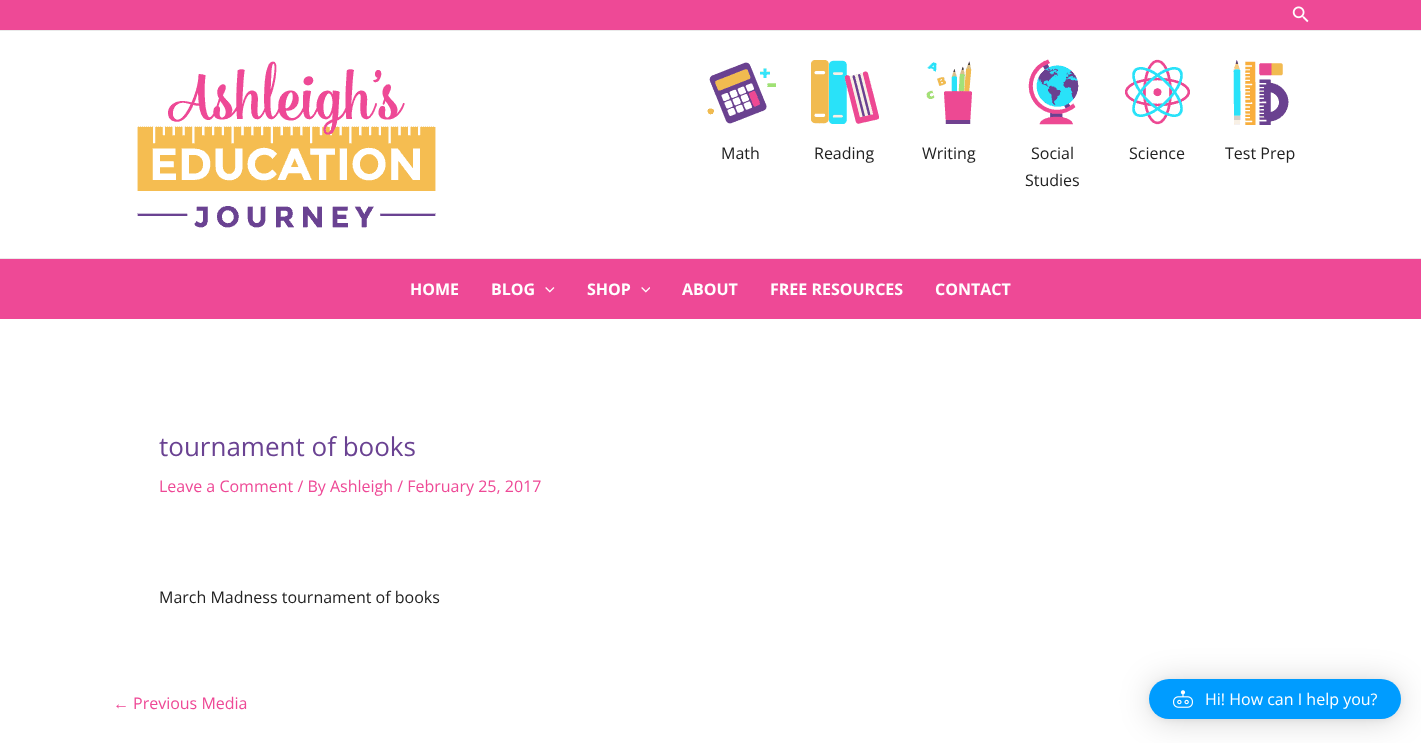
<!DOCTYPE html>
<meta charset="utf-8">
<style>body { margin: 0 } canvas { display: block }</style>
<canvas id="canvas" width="1421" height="743"></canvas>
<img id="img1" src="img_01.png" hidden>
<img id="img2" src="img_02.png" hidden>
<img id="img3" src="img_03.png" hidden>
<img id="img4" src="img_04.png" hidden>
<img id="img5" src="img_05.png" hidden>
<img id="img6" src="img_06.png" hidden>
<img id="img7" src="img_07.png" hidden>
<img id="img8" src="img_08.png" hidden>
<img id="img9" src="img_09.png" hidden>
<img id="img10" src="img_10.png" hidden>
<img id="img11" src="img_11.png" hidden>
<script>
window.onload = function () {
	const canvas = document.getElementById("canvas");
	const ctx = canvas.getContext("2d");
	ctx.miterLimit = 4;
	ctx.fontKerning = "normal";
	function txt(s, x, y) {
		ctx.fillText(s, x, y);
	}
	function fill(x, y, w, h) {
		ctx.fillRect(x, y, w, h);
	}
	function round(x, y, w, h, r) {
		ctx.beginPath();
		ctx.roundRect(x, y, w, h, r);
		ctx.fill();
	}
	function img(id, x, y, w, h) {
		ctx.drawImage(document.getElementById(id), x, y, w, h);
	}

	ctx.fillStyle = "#FFFFFF";
	fill(0, 0, 1421, 743);
	ctx.fillStyle = "#EE4996";
	fill(0, 0, 1421, 30);
	ctx.fillStyle = "#EAEAEA";
	fill(0, 30, 1421, 1);
	img("img1", 1292, 6, 17, 17);
	fill(0, 258, 1421, 1);
	img("img2", 137, 61, 299, 167);
	img("img3", 707, 62, 69, 62);
	img("img4", 811, 60, 68, 64);
	img("img5", 926, 61, 46, 63);
	img("img6", 1028, 59, 51, 66);
	img("img7", 1125, 59, 65, 66);
	img("img8", 1233, 60, 56, 65);
	ctx.fillStyle = "#EE4996";
	fill(0, 259, 1421, 60);
	img("img9", 545, 287, 10, 6);
	img("img10", 641, 287, 9, 6);
	ctx.fillStyle = "rgba(0, 0, 0, 0.16)";
	ctx.filter = "blur(16px)";
	ctx.beginPath();
	ctx.roundRect(1149, 681, 252, 40, 20);
	ctx.fill();
	ctx.filter = "none";
	ctx.fillStyle = "rgba(0, 0, 0, 0.06)";
	ctx.filter = "blur(3px)";
	ctx.beginPath();
	ctx.roundRect(1149, 680, 252, 40, 20);
	ctx.fill();
	ctx.filter = "none";
	ctx.fillStyle = "#009CFF";
	round(1149, 679, 252, 40, 20);
	img("img11", 1173, 690, 20, 18);
	ctx.font = "16px Open Sans";
	ctx.fillStyle = "#222222";
	txt("Math", 721, 159);
	txt("Reading", 814, 159);
	txt("Writing", 922, 159);
	txt("Social", 1031, 159);
	txt("Studies", 1025, 186);
	txt("Science", 1129, 159);
	txt("Test Prep", 1225, 159);
	ctx.font = "bold 16px Open Sans";
	ctx.fillStyle = "#FFFFFF";
	txt("HOME", 410, 295);
	txt("BLOG", 491, 295);
	txt("SHOP", 587, 295);
	txt("ABOUT", 682, 295);
	txt("FREE RESOURCES", 770, 295);
	txt("CONTACT", 935, 295);
	ctx.font = "26px Open Sans";
	ctx.fillStyle = "#6A4292";
	txt("tournament of books", 159, 456);
	ctx.font = "16px Open Sans";
	ctx.fillStyle = "#EE4996";
	txt("Leave a Comment / By Ashleigh / February 25, 2017", 159, 492);
	ctx.fillStyle = "#222222";
	txt("March Madness tournament of books", 159, 603);
	ctx.font = "16px Liberation Sans";
	ctx.fillStyle = "#EE4996";
	txt("←", 113, 709);
	ctx.font = "16px Open Sans";
	txt("Previous Media", 133, 709);
	ctx.fillStyle = "#FFFFFF";
	txt("Hi! How can I help you?", 1205, 705);
};
</script>
